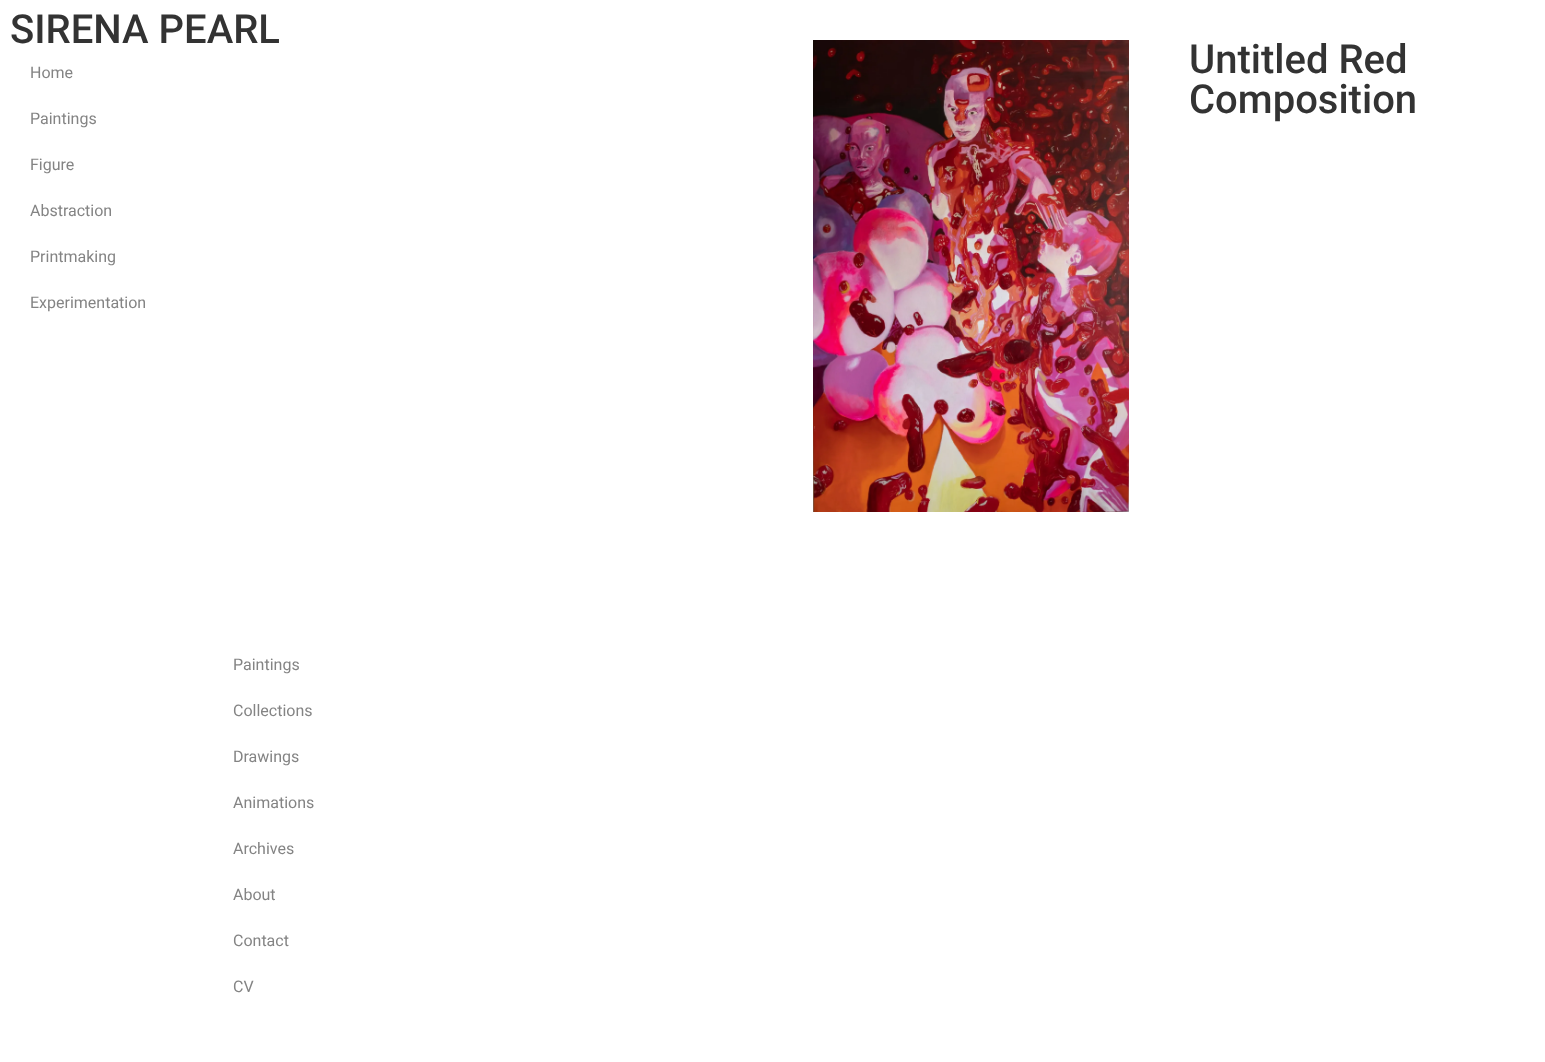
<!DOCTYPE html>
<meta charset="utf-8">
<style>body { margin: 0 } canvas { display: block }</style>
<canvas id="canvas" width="1545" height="1062"></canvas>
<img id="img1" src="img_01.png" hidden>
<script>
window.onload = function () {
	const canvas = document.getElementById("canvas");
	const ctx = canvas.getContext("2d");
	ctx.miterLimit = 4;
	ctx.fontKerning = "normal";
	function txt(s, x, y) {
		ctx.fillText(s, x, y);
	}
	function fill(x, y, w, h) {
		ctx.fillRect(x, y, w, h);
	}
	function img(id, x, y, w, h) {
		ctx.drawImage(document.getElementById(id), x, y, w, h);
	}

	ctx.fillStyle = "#FFFFFF";
	fill(0, 0, 1545, 1062);
	img("img1", 813, 40, 316, 472);
	ctx.font = "500 40px Roboto";
	ctx.fillStyle = "#333333";
	txt("SIRENA PEARL", 10, 43);
	ctx.font = "16px Roboto";
	ctx.fillStyle = "#848484";
	txt("Home", 30, 78);
	txt("Paintings", 30, 124);
	txt("Figure", 30, 170);
	txt("Abstraction", 30, 216);
	txt("Printmaking", 30, 262);
	txt("Experimentation", 30, 308);
	ctx.font = "500 40px Roboto";
	ctx.fillStyle = "#333333";
	txt("Untitled Red", 1189, 73);
	txt("Composition", 1189, 113);
	ctx.font = "16px Roboto";
	ctx.fillStyle = "#848484";
	txt("Paintings", 233, 670);
	txt("Collections", 233, 716);
	txt("Drawings", 233, 762);
	txt("Animations", 233, 808);
	txt("Archives", 233, 854);
	txt("About", 233, 900);
	txt("Contact", 233, 946);
	txt("CV", 233, 992);
};
</script>
